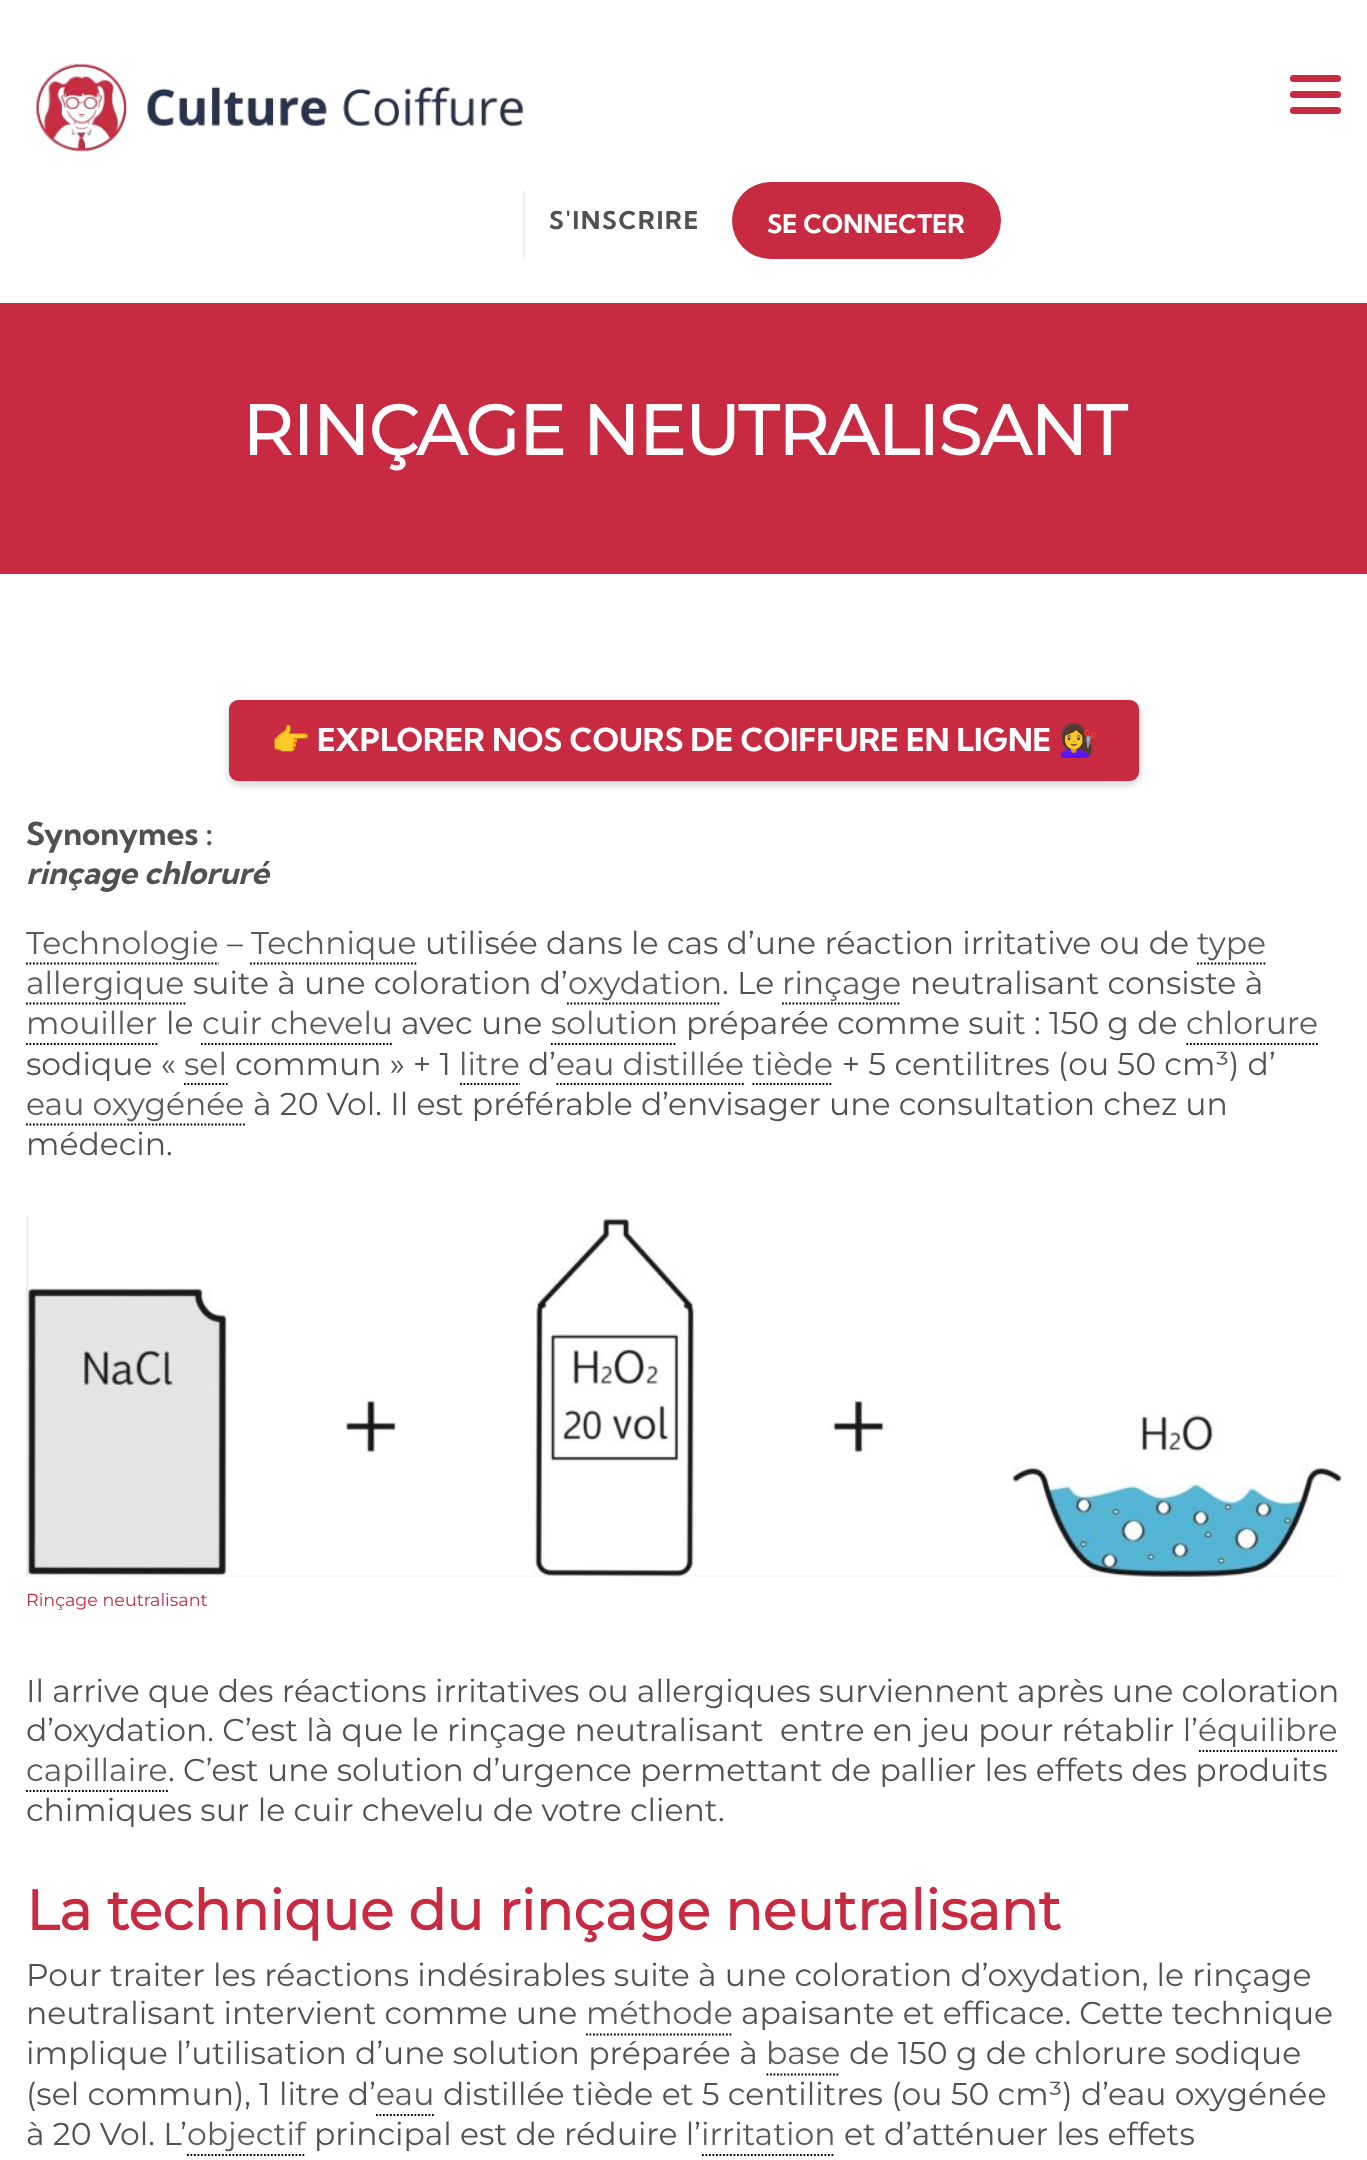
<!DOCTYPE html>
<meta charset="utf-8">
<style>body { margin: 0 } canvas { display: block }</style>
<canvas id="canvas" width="1367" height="2160"></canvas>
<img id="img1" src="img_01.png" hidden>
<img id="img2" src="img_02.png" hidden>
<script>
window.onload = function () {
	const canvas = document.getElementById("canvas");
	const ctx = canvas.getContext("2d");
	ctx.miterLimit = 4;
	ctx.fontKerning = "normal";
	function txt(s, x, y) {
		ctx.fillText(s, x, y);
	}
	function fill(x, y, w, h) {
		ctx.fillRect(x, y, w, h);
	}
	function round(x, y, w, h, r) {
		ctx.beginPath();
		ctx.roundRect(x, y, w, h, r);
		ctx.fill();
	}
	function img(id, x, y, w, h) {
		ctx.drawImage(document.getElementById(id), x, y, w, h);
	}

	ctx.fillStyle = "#FFFFFF";
	fill(0, 0, 1367, 2160);
	img("img1", 35, 63, 489, 89);
	ctx.fillStyle = "#C82A42";
	round(1290, 75, 51, 7, 3.5);
	round(1290, 91, 51, 7, 3.5);
	round(1290, 107, 51, 7, 3.5);
	ctx.fillStyle = "#EEEEEE";
	fill(523, 191, 2, 68);
	ctx.fillStyle = "#C82A42";
	round(732, 182, 269, 77, 38.5);
	fill(0, 303, 1367, 271);
	ctx.fillStyle = "rgba(0, 0, 0, 0.2)";
	ctx.filter = "blur(4.5px)";
	ctx.beginPath();
	ctx.roundRect(229, 704, 910, 80, 9);
	ctx.fill();
	ctx.filter = "none";
	ctx.fillStyle = "#C82A42";
	round(229, 700, 910, 81, 9);
	ctx.beginPath();
	ctx.moveTo(26, 963.5);
	ctx.lineTo(219, 963.5);
	ctx.strokeStyle = "#000000";
	ctx.lineWidth = 1.8;
	ctx.setLineDash([1.75, 1.75]);
	ctx.stroke();
	ctx.beginPath();
	ctx.moveTo(250, 963.5);
	ctx.lineTo(416.5, 963.5);
	ctx.stroke();
	ctx.beginPath();
	ctx.moveTo(1197, 963.5);
	ctx.lineTo(1267, 963.5);
	ctx.stroke();
	ctx.beginPath();
	ctx.moveTo(26, 1003.5);
	ctx.lineTo(185.5, 1003.5);
	ctx.stroke();
	ctx.beginPath();
	ctx.moveTo(567, 1003.5);
	ctx.lineTo(721, 1003.5);
	ctx.stroke();
	ctx.beginPath();
	ctx.moveTo(782, 1003.5);
	ctx.lineTo(901, 1003.5);
	ctx.stroke();
	ctx.beginPath();
	ctx.moveTo(26, 1044);
	ctx.lineTo(157.5, 1044);
	ctx.stroke();
	ctx.beginPath();
	ctx.moveTo(201, 1044);
	ctx.lineTo(392, 1044);
	ctx.stroke();
	ctx.beginPath();
	ctx.moveTo(551, 1044);
	ctx.lineTo(677, 1044);
	ctx.stroke();
	ctx.beginPath();
	ctx.moveTo(1186.5, 1044);
	ctx.lineTo(1318, 1044);
	ctx.stroke();
	ctx.beginPath();
	ctx.moveTo(184, 1084);
	ctx.lineTo(227.5, 1084);
	ctx.stroke();
	ctx.beginPath();
	ctx.moveTo(460, 1084);
	ctx.lineTo(520, 1084);
	ctx.stroke();
	ctx.beginPath();
	ctx.moveTo(556.5, 1084);
	ctx.lineTo(744, 1084);
	ctx.stroke();
	ctx.beginPath();
	ctx.moveTo(752.5, 1084);
	ctx.lineTo(833, 1084);
	ctx.stroke();
	ctx.beginPath();
	ctx.moveTo(26, 1124.5);
	ctx.lineTo(245, 1124.5);
	ctx.stroke();
	img("img2", 26, 1216, 1316, 361);
	ctx.beginPath();
	ctx.moveTo(1199, 1751);
	ctx.lineTo(1337, 1751);
	ctx.stroke();
	ctx.beginPath();
	ctx.moveTo(26, 1791);
	ctx.lineTo(168, 1791);
	ctx.stroke();
	ctx.beginPath();
	ctx.moveTo(586, 2034.5);
	ctx.lineTo(733, 2034.5);
	ctx.stroke();
	ctx.beginPath();
	ctx.moveTo(766.5, 2074.5);
	ctx.lineTo(840, 2074.5);
	ctx.stroke();
	ctx.beginPath();
	ctx.moveTo(376, 2115);
	ctx.lineTo(434, 2115);
	ctx.stroke();
	ctx.beginPath();
	ctx.moveTo(187, 2155);
	ctx.lineTo(306, 2155);
	ctx.stroke();
	ctx.beginPath();
	ctx.moveTo(702, 2155);
	ctx.lineTo(835, 2155);
	ctx.stroke();
	ctx.letterSpacing = "1.75px";
	ctx.font = "bold 24.5px Kumbh Sans";
	ctx.fillStyle = "#515151";
	txt("S'INSCRIRE", 549, 229);
	ctx.letterSpacing = "0px";
	ctx.font = "bold 25.5px Kumbh Sans";
	ctx.fillStyle = "#FFFFFF";
	txt("SE CONNECTER", 767, 233);
	ctx.letterSpacing = "-0.7px";
	ctx.font = "bold 70px Montserrat";
	txt("RINÇAGE NEUTRALISANT", 242, 455);
	ctx.letterSpacing = "0px";
	ctx.font = "bold 31.5px Noto Color Emoji";
	txt("👉", 271, 751);
	ctx.font = "bold 31.5px Kumbh Sans";
	txt("EXPLORER NOS COURS DE COIFFURE EN LIGNE", 317, 751);
	ctx.font = "bold 31.5px Noto Color Emoji";
	txt("💇‍♀️", 1059, 751);
	ctx.font = "bold 31.5px Kumbh Sans";
	ctx.fillStyle = "#515151";
	txt("Synonymes :", 26, 845);
	ctx.font = "italic bold 31.5px Kumbh Sans";
	txt("rinçage chloruré", 26, 884);
	ctx.font = "100 31.5px Montserrat";
	ctx.fillStyle = "#5B5B5B";
	txt("Technologie", 26, 954);
	ctx.fillStyle = "#515151";
	txt("–", 227, 954);
	ctx.fillStyle = "#5B5B5B";
	txt("Technique", 251, 954);
	ctx.fillStyle = "#515151";
	txt("utilisée dans le cas d’une réaction irritative ou de", 425, 954);
	ctx.fillStyle = "#5B5B5B";
	txt("type", 1197, 954);
	txt("allergique", 26, 994);
	ctx.fillStyle = "#515151";
	txt("suite à une coloration d’", 193, 994);
	ctx.fillStyle = "#5B5B5B";
	txt("oxydation", 568, 994);
	ctx.fillStyle = "#515151";
	txt(". Le", 722, 994);
	ctx.fillStyle = "#5B5B5B";
	txt("rinçage", 782, 994);
	ctx.fillStyle = "#515151";
	txt("neutralisant consiste à", 910, 994);
	ctx.fillStyle = "#5B5B5B";
	txt("mouiller", 26, 1034);
	ctx.fillStyle = "#515151";
	txt("le", 166, 1034);
	ctx.fillStyle = "#5B5B5B";
	txt("cuir chevelu", 202, 1034);
	ctx.fillStyle = "#515151";
	txt("avec une", 401, 1034);
	ctx.fillStyle = "#5B5B5B";
	txt("solution", 551, 1034);
	ctx.fillStyle = "#515151";
	txt("préparée comme suit : 150 g de", 686, 1034);
	ctx.fillStyle = "#5B5B5B";
	txt("chlorure", 1186, 1034);
	ctx.fillStyle = "#515151";
	txt("sodique «", 26, 1075);
	ctx.fillStyle = "#5B5B5B";
	txt("sel", 184, 1075);
	ctx.fillStyle = "#515151";
	txt("commun » + 1", 235, 1075);
	ctx.fillStyle = "#5B5B5B";
	txt("litre", 459, 1075);
	ctx.fillStyle = "#515151";
	txt("d’", 528, 1075);
	ctx.fillStyle = "#5B5B5B";
	txt("eau distillée tiède", 556, 1075);
	ctx.fillStyle = "#515151";
	txt("+ 5 centilitres (ou 50 cm³) d’", 842, 1075);
	ctx.fillStyle = "#5B5B5B";
	txt("eau oxygénée", 26, 1115);
	ctx.fillStyle = "#515151";
	txt("à 20 Vol. Il est préférable d’envisager une consultation chez un", 253, 1115);
	txt("médecin.", 26, 1155);
	ctx.font = "100 17.5px Montserrat";
	ctx.fillStyle = "#C82A42";
	txt("Rinçage neutralisant", 26, 1606);
	ctx.font = "100 31.5px Montserrat";
	ctx.fillStyle = "#515151";
	txt("Il arrive que des réactions irritatives ou allergiques surviennent après une coloration", 26, 1702);
	txt("d’oxydation. C’est là que le rinçage neutralisant  entre en jeu pour rétablir l’", 26, 1741);
	ctx.fillStyle = "#5B5B5B";
	txt("équilibre", 1198, 1741);
	txt("capillaire", 26, 1781);
	ctx.fillStyle = "#515151";
	txt(". C’est une solution d’urgence permettant de pallier les effets des produits", 168, 1781);
	txt("chimiques sur le cuir chevelu de votre client.", 26, 1821);
	ctx.font = "bold 56px Montserrat";
	ctx.fillStyle = "#C82A42";
	txt("La technique du rinçage neutralisant", 26, 1930);
	ctx.font = "100 31.5px Montserrat";
	ctx.fillStyle = "#515151";
	txt("Pour traiter les réactions indésirables suite à une coloration d’oxydation, le rinçage", 26, 1986);
	txt("neutralisant intervient comme une", 26, 2024);
	ctx.fillStyle = "#5B5B5B";
	txt("méthode", 586, 2024);
	ctx.fillStyle = "#515151";
	txt("apaisante et efficace. Cette technique", 741, 2024);
	txt("implique l’utilisation d’une solution préparée à", 26, 2064);
	ctx.fillStyle = "#5B5B5B";
	txt("base", 766, 2064);
	ctx.fillStyle = "#515151";
	txt("de 150 g de chlorure sodique", 849, 2064);
	txt("(sel commun), 1 litre d’", 26, 2105);
	ctx.fillStyle = "#5B5B5B";
	txt("eau", 376, 2105);
	ctx.fillStyle = "#515151";
	txt("distillée tiède et 5 centilitres (ou 50 cm³) d’eau oxygénée", 443, 2105);
	txt("à 20 Vol. L’", 26, 2145);
	ctx.fillStyle = "#5B5B5B";
	txt("objectif", 187, 2145);
	ctx.fillStyle = "#515151";
	txt("principal est de réduire l’", 314, 2145);
	ctx.fillStyle = "#5B5B5B";
	txt("irritation", 701, 2145);
	ctx.fillStyle = "#515151";
	txt("et d’atténuer les effets", 844, 2145);
};
</script>
